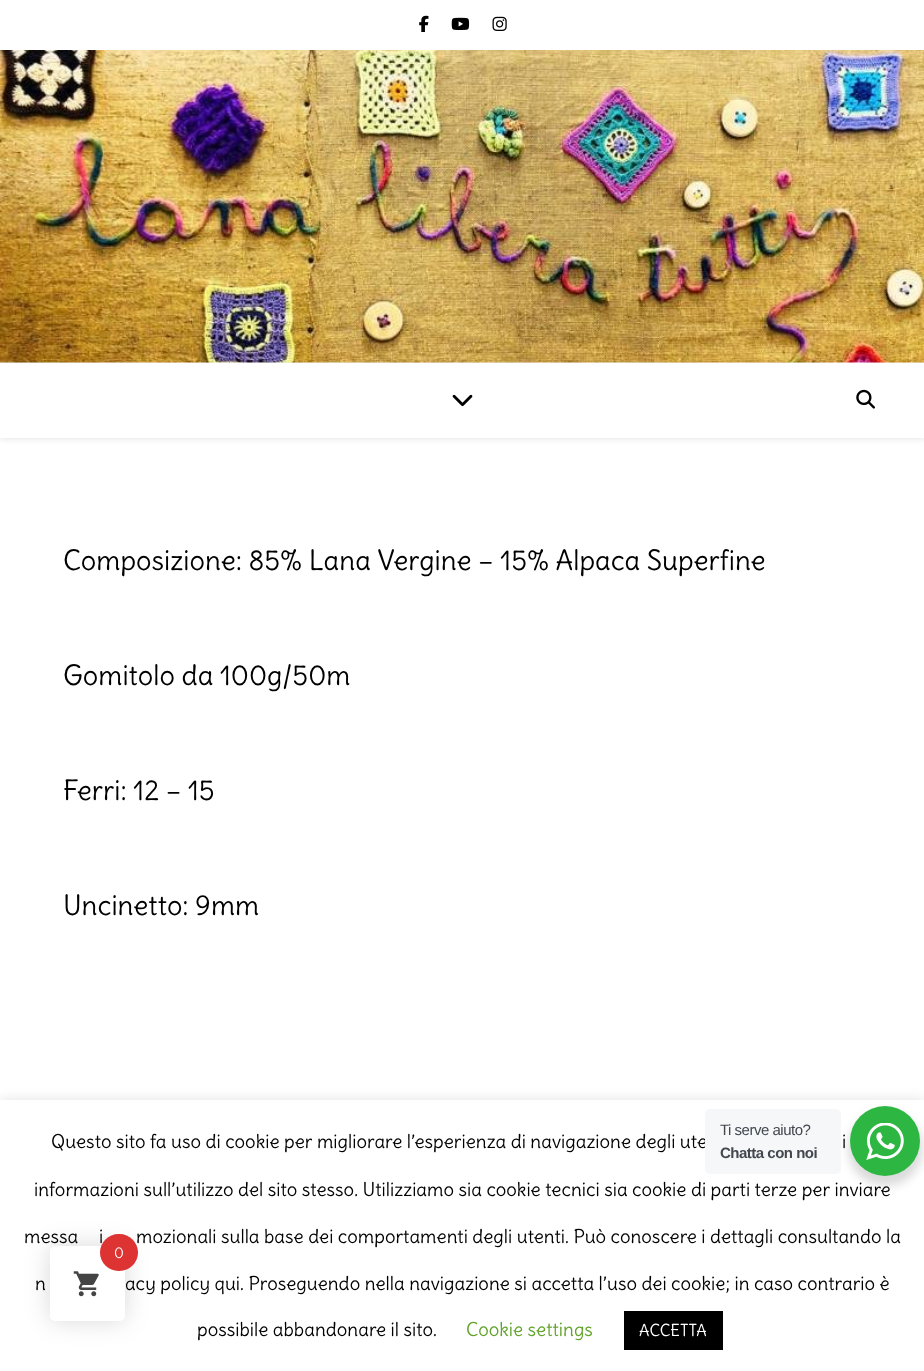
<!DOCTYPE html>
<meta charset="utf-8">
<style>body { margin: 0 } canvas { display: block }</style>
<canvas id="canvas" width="924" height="1371"></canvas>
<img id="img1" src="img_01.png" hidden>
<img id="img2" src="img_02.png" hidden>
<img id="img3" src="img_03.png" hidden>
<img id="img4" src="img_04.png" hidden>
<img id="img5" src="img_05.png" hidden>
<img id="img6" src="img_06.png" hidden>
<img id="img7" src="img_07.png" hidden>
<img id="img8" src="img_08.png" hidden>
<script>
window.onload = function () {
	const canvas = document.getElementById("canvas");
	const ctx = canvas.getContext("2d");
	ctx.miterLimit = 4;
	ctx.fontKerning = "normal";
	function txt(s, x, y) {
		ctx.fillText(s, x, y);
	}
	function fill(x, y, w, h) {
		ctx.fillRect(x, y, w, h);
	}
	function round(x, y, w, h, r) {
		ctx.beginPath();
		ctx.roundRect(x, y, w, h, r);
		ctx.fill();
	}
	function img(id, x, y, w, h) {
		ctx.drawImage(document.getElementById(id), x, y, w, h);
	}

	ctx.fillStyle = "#FFFFFF";
	fill(0, 0, 924, 1371);
	img("img1", 419, 15, 10, 17);
	img("img2", 451, 17, 19, 13);
	img("img3", 492, 16, 15, 15);
	img("img4", 0, 50, 924, 313);
	ctx.fillStyle = "rgba(0, 0, 0, 0.1)";
	ctx.filter = "blur(3px)";
	ctx.beginPath();
	ctx.rect(0, 364, 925, 75);
	ctx.fill();
	ctx.filter = "none";
	ctx.fillStyle = "#FFFFFF";
	fill(0, 363, 924, 75);
	img("img5", 452, 394, 21, 13);
	img("img6", 856, 389, 19, 20);
	ctx.fillStyle = "rgba(172, 171, 171, 0.3)";
	ctx.filter = "blur(6px)";
	ctx.beginPath();
	ctx.rect(0, 1099, 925, 271);
	ctx.fill();
	ctx.filter = "none";
	ctx.fillStyle = "#FFFFFF";
	fill(0, 1100, 924, 271);
	ctx.fillStyle = "rgba(0, 0, 0, 0.14)";
	ctx.filter = "blur(5px)";
	ctx.beginPath();
	ctx.roundRect(848, 1111, 75, 75, 37.5);
	ctx.fill();
	ctx.filter = "none";
	ctx.fillStyle = "#2DB742";
	ctx.beginPath();
	ctx.arc(885, 1141, 35, 0, Math.PI * 2);
	ctx.fill();
	img("img7", 866, 1123, 38, 37);
	ctx.fillStyle = "#000000";
	fill(624, 1311, 99, 39);
	ctx.fillStyle = "rgba(0, 0, 0, 0.15)";
	ctx.filter = "blur(12.5px)";
	ctx.beginPath();
	ctx.roundRect(50, 1246, 75, 75, 5);
	ctx.fill();
	ctx.filter = "none";
	ctx.fillStyle = "#FFFFFF";
	round(50, 1246, 75, 75, 5);
	img("img8", 73, 1271, 26, 26);
	ctx.font = "27.5px Delius";
	ctx.fillStyle = "#000000";
	txt("Composizione: 85% Lana Vergine – 15% Alpaca Superfine", 63, 570);
	txt("Gomitolo da 100g/50m", 63, 685);
	txt("Ferri: 12 – 15", 63, 800);
	txt("Uncinetto: 9mm", 63, 915);
	ctx.font = "18.75px Delius";
	txt("Questo sito fa uso di cookie per migliorare l’esperienza di navigazione degli ute", 51, 1148);
	ctx.fillStyle = "#F5F7F9";
	round(705, 1109, 136, 65, 5);
	ctx.letterSpacing = "-0.5px";
	ctx.font = "bold 15px Liberation Sans";
	ctx.fillStyle = "#43474E";
	txt("Chatta con noi", 720, 1158);
	ctx.font = "15px Liberation Sans";
	txt("Ti serve aiuto?", 720, 1135);
	ctx.letterSpacing = "0px";
	ctx.font = "18.75px Delius";
	ctx.fillStyle = "#000000";
	txt("i", 842, 1148);
	txt("informazioni sull’utilizzo del sito stesso. Utilizziamo sia cookie tecnici sia cookie di parti terze per inviare", 34, 1196);
	txt("messa", 24, 1243);
	txt("i", 99, 1243);
	txt("mozionali sulla base dei comportamenti degli utenti. Può conoscere i dettagli consultando la", 136, 1243);
	txt("n", 35, 1290);
	txt("acy policy qui. Proseguendo nella navigazione si accetta l’uso dei cookie; in caso contrario è", 125, 1290);
	txt("possibile abbandonare il sito.", 197, 1336);
	ctx.fillStyle = "#62A329";
	txt("Cookie settings", 466, 1336);
	ctx.font = "16.25px Delius";
	ctx.fillStyle = "#FFFFFF";
	txt("ACCETTA", 639, 1336);
	ctx.fillStyle = "#DD3333";
	round(100, 1234, 38, 37, 18.5);
	ctx.font = "15px Delius";
	ctx.fillStyle = "#FFFFFF";
	txt("0", 114, 1258);
};
</script>
